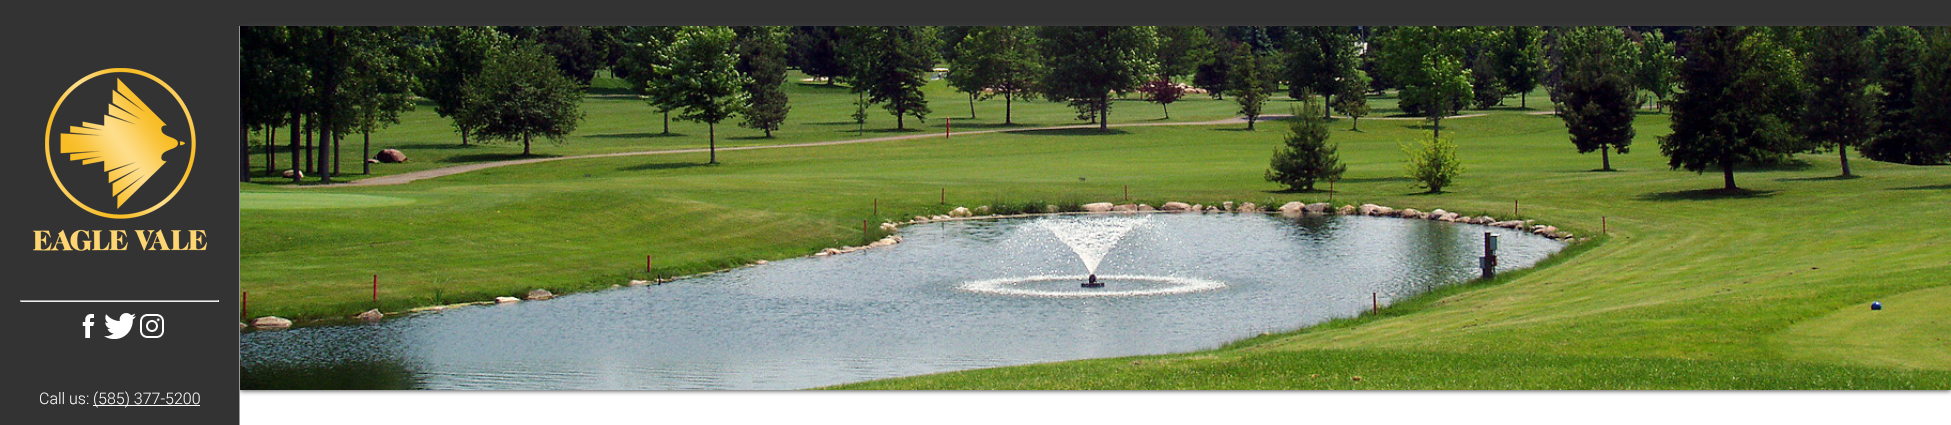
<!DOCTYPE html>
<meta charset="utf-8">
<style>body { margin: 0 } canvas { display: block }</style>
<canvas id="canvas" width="1951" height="425"></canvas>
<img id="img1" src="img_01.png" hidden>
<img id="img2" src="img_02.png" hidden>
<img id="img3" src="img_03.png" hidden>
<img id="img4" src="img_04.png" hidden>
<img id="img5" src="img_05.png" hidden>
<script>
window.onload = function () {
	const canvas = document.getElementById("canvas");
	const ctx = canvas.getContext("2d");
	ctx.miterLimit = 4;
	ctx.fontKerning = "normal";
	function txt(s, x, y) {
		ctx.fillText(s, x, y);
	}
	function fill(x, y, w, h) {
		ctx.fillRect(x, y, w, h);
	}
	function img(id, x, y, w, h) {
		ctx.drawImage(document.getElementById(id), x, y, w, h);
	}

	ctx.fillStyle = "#333333";
	fill(0, 0, 1951, 425);
	ctx.fillStyle = "#FFFFFF";
	fill(240, 390, 1711, 35);
	ctx.fillStyle = "#4A4A4A";
	ctx.filter = "blur(2.5px)";
	ctx.beginPath();
	ctx.rect(240, 27, 1711, 364);
	ctx.fill();
	ctx.filter = "none";
	ctx.fillStyle = "#333333";
	fill(237, 26, 2, 366);
	ctx.fillStyle = "#999999";
	fill(239, 26, 1, 399);
	img("img1", 33, 68, 174, 183);
	ctx.fillStyle = "#9F9F9F";
	fill(20, 300, 199, 1);
	ctx.fillStyle = "#EEEEEE";
	fill(218, 300, 1, 2);
	fill(20, 301, 199, 1);
	ctx.fillStyle = "#9F9F9F";
	fill(20, 300, 1, 2);
	img("img2", 82, 314, 13, 24);
	img("img3", 104, 313, 32, 26);
	img("img4", 140, 314, 24, 24);
	ctx.fillStyle = "#FFFFFF";
	fill(93, 405, 107, 1);
	img("img5", 240, 26, 1711, 364);
	ctx.font = "300 16px Roboto";
	txt("Call us:", 39, 404);
	txt("(585) 377-5200", 93, 404);
};
</script>
